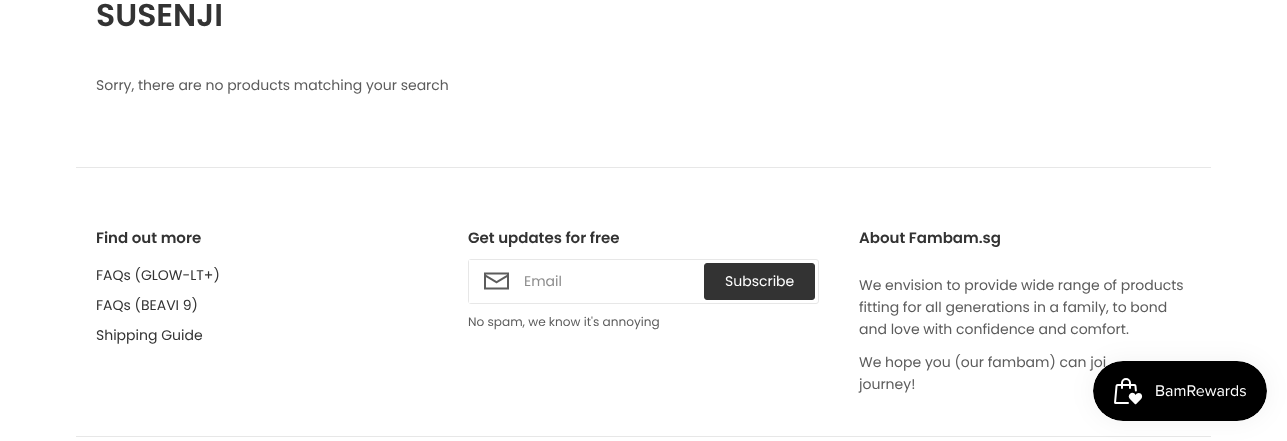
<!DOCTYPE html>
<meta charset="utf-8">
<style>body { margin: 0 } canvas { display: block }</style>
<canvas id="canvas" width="1287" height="441"></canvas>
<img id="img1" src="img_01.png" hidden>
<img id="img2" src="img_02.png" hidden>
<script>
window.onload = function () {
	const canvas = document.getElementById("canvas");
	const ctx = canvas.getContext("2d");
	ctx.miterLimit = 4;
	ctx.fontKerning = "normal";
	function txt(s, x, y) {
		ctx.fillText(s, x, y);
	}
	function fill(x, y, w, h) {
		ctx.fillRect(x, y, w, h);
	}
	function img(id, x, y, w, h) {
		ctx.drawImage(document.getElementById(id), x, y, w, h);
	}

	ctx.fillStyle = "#FFFFFF";
	fill(0, 0, 1287, 441);
	ctx.fillStyle = "#E7E7E7";
	fill(76, 167, 1135, 1);
	fill(76, 436, 1135, 1);
	ctx.beginPath();
	ctx.roundRect(468.5, 259.5, 350, 44, 2.5);
	ctx.strokeStyle = "#E7E7E7";
	ctx.stroke();
	img("img1", 484, 272, 25, 18);
	ctx.fillStyle = "#FFFFFF";
	fill(469, 260, 2, 43);
	ctx.fillStyle = "#333333";
	ctx.beginPath();
	ctx.roundRect(704.5, 263.5, 110, 36, 2.5);
	ctx.fill();
	ctx.strokeStyle = "#333333";
	ctx.stroke();
	ctx.fillStyle = "rgba(0, 0, 0, 0.05)";
	ctx.filter = "blur(12.5px)";
	ctx.beginPath();
	ctx.roundRect(1093, 361, 174, 60, 30);
	ctx.fill();
	ctx.filter = "none";
	ctx.font = "600 31.5px Poppins";
	ctx.fillStyle = "#333333";
	txt("SUSENJI", 96, 26);
	ctx.font = "14px Poppins";
	ctx.fillStyle = "#5C5C5C";
	txt("Sorry, there are no products matching your search", 96, 90);
	ctx.font = "600 15px Poppins";
	ctx.fillStyle = "#333333";
	txt("Find out more", 96, 243);
	ctx.font = "14px Poppins";
	txt("FAQs (GLOW-LT+)", 96, 280);
	txt("FAQs (BEAVI 9)", 96, 310);
	txt("Shipping Guide", 96, 340);
	ctx.font = "600 15px Poppins";
	txt("Get updates for free", 468, 243);
	ctx.font = "14px Poppins";
	ctx.fillStyle = "#8D8D8D";
	txt("Email", 524, 286);
	ctx.fillStyle = "#FFFFFF";
	txt("Subscribe", 725, 286);
	ctx.font = "12.1px Poppins";
	ctx.fillStyle = "#5C5C5C";
	txt("No spam, we know it's annoying", 468, 326);
	ctx.font = "600 15px Poppins";
	ctx.fillStyle = "#333333";
	txt("About Fambam.sg", 859, 243);
	ctx.font = "14px Poppins";
	ctx.fillStyle = "#5C5C5C";
	txt("We envision to provide wide range of products", 859, 290);
	txt("fitting for all generations in a family, to bond", 859, 312);
	txt("and love with confidence and comfort.", 859, 334);
	txt("We hope you (our fambam) can joi", 859, 367);
	txt("journey!", 859, 389);
	img("img2", 1093, 361, 174, 60);
};
</script>
